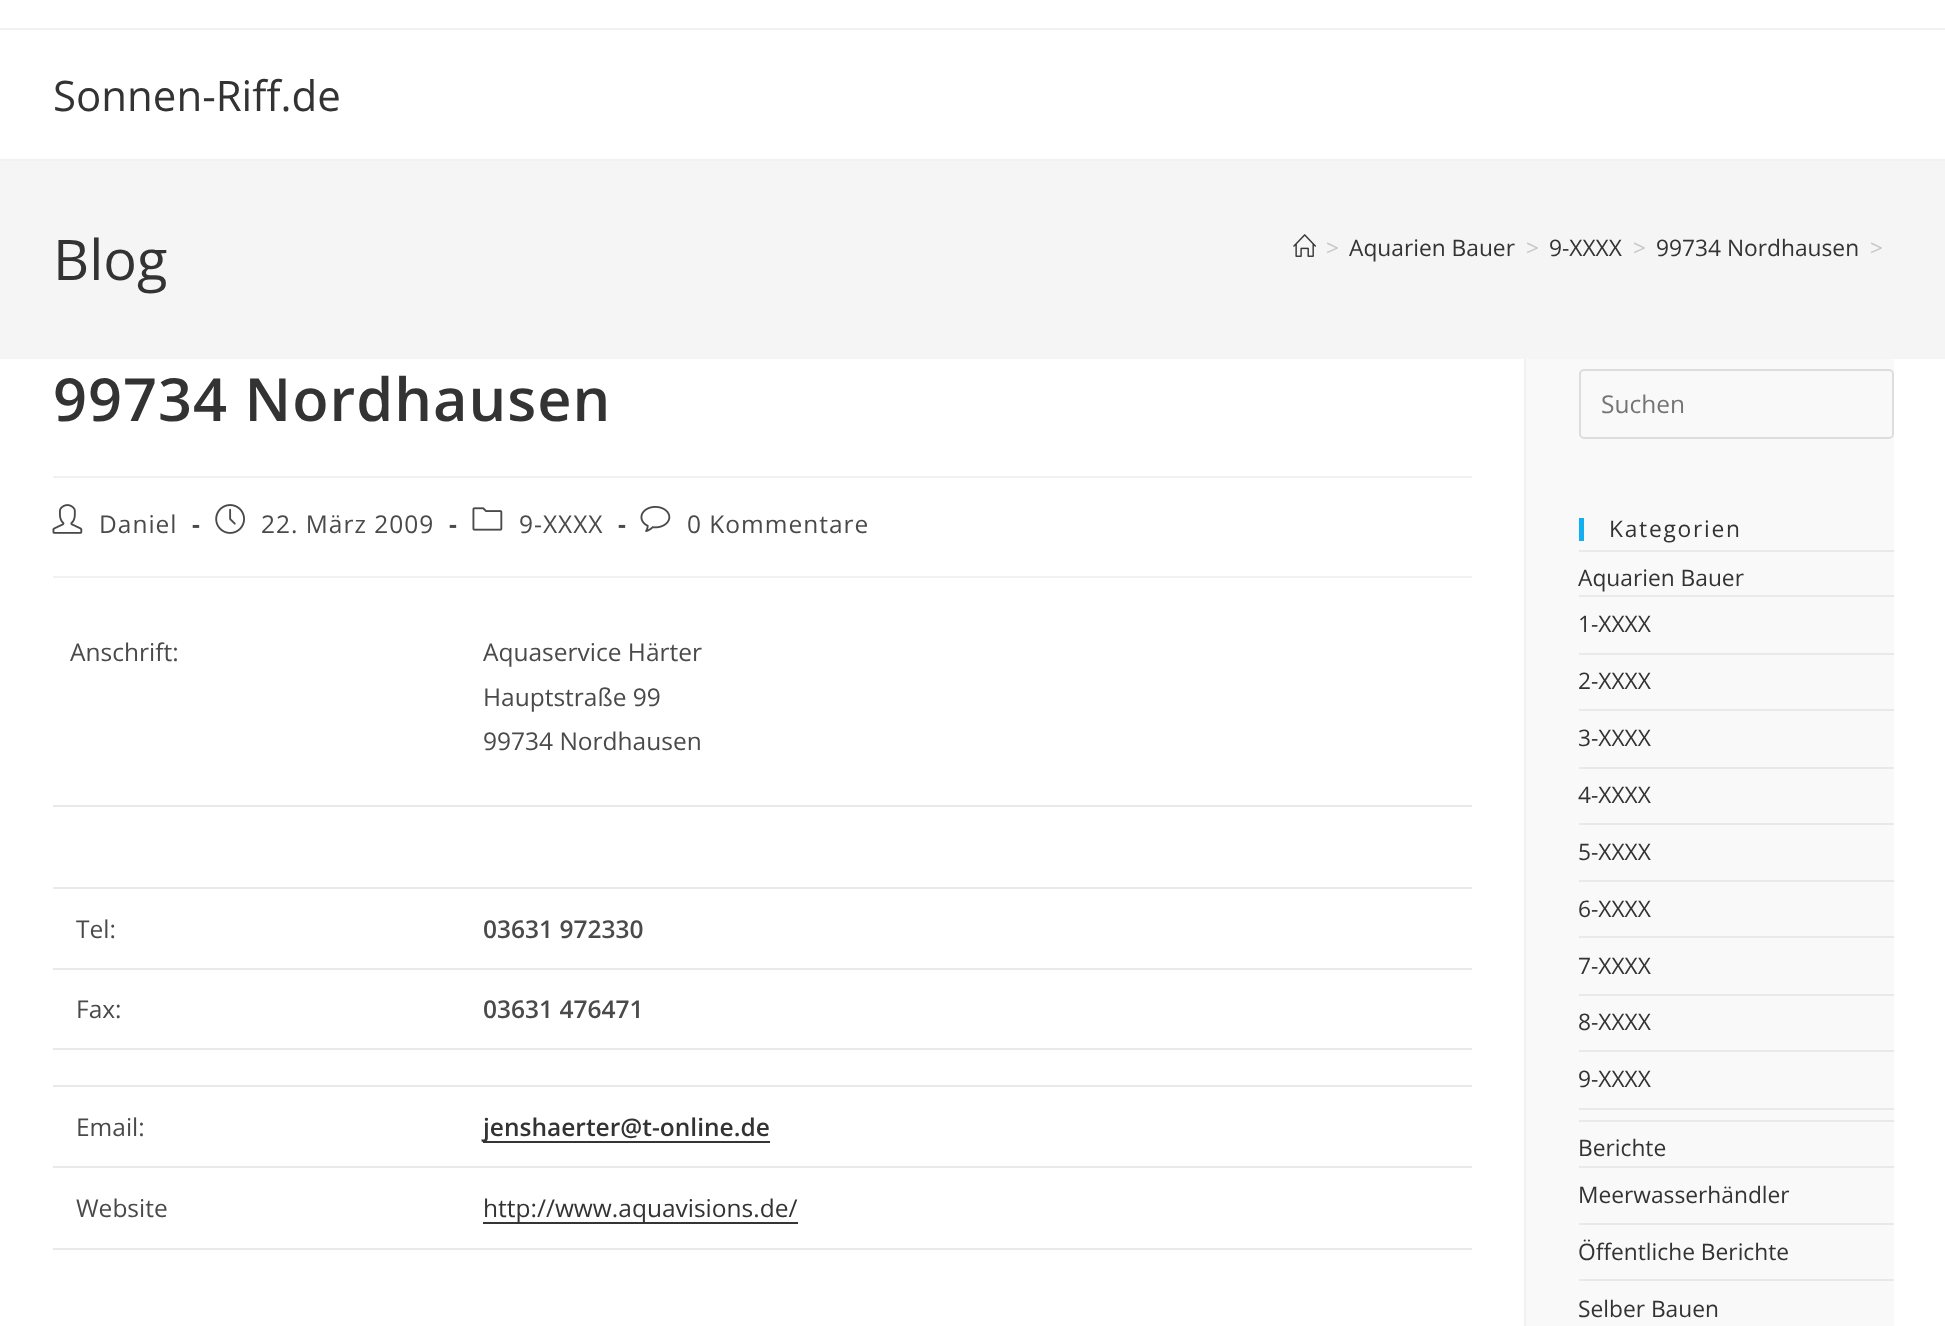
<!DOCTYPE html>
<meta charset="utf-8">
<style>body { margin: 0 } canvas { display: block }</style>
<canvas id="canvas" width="1945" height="1326"></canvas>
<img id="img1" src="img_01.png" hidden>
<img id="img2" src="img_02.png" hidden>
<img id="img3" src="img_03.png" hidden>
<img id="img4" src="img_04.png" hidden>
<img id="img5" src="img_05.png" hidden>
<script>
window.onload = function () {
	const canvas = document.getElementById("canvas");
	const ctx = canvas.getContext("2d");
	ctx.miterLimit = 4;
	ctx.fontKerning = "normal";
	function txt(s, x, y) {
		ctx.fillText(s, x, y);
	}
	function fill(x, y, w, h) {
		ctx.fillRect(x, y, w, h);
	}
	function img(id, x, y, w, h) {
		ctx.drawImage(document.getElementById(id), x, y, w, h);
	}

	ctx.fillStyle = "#FFFFFF";
	fill(0, 0, 1945, 1326);
	ctx.fillStyle = "#F1F1F1";
	fill(0, 28, 1945, 2);
	fill(0, 159, 1945, 2);
	ctx.fillStyle = "#F5F5F5";
	fill(0, 161, 1945, 198);
	img("img1", 1293, 234, 23, 23);
	ctx.fillStyle = "#F1F1F1";
	fill(1524, 359, 2, 967);
	fill(53, 476, 1419, 2);
	fill(53, 576, 1419, 2);
	img("img2", 52, 504, 31, 30);
	img("img3", 215, 504, 30, 30);
	img("img4", 472, 507, 31, 24);
	img("img5", 640, 506, 31, 26);
	ctx.fillStyle = "#E9E9E9";
	fill(53, 805, 1419, 2);
	fill(53, 887, 1419, 2);
	fill(53, 968, 1419, 2);
	fill(53, 1048, 1419, 2);
	fill(53, 1085, 1419, 2);
	fill(53, 1166, 1419, 2);
	ctx.fillStyle = "#353535";
	fill(483, 1141, 287, 2);
	ctx.fillStyle = "#E9E9E9";
	fill(53, 1248, 1419, 2);
	ctx.fillStyle = "#353535";
	fill(483, 1222, 315, 2);
	ctx.fillStyle = "#F9F9F9";
	fill(1526, 359, 368, 967);
	ctx.beginPath();
	ctx.roundRect(1580, 370, 313, 68, 4);
	ctx.strokeStyle = "#DDDDDD";
	ctx.lineWidth = 2;
	ctx.stroke();
	ctx.fillStyle = "#13AFF0";
	fill(1579, 518, 5, 23);
	ctx.fillStyle = "#E9E9E9";
	fill(1579, 550, 315, 2);
	fill(1579, 1120, 315, 2);
	fill(1579, 595, 315, 2);
	fill(1579, 653, 315, 2);
	fill(1579, 709, 315, 2);
	fill(1579, 767, 315, 2);
	fill(1579, 823, 315, 2);
	fill(1579, 880, 315, 2);
	fill(1579, 936, 315, 2);
	fill(1579, 994, 315, 2);
	fill(1579, 1050, 315, 2);
	fill(1579, 1108, 315, 2);
	fill(1579, 1166, 315, 2);
	fill(1579, 1223, 315, 2);
	fill(1579, 1279, 315, 2);
	ctx.font = "42px Open Sans";
	ctx.fillStyle = "#333333";
	txt("Sonnen-Riff.de", 53, 111);
	ctx.font = "56px Open Sans";
	txt("Blog", 53, 280);
	ctx.font = "22.75px Open Sans";
	ctx.fillStyle = "#C6C6C6";
	txt(">", 1326, 256);
	ctx.fillStyle = "#333333";
	txt("Aquarien Bauer", 1349, 256);
	ctx.fillStyle = "#C6C6C6";
	txt(">", 1526, 256);
	ctx.fillStyle = "#333333";
	txt("9-XXXX", 1549, 256);
	ctx.fillStyle = "#C6C6C6";
	txt(">", 1633, 256);
	ctx.fillStyle = "#333333";
	txt("99734 Nordhausen", 1656, 256);
	ctx.fillStyle = "#C6C6C6";
	txt(">", 1870, 256);
	ctx.letterSpacing = "1px";
	ctx.font = "600 59.5px Open Sans";
	ctx.fillStyle = "#333333";
	txt("99734 Nordhausen", 53, 421);
	ctx.font = "24.5px Open Sans";
	ctx.fillStyle = "#4A4A4A";
	txt("Daniel", 99, 533);
	ctx.font = "bold 24.5px Open Sans";
	txt("-", 192, 533);
	ctx.font = "24.5px Open Sans";
	txt("22. März 2009", 261, 533);
	ctx.font = "bold 24.5px Open Sans";
	txt("-", 449, 533);
	ctx.font = "24.5px Open Sans";
	txt("9-XXXX", 519, 533);
	ctx.font = "bold 24.5px Open Sans";
	txt("-", 618, 533);
	ctx.font = "24.5px Open Sans";
	txt("0 Kommentare", 687, 533);
	ctx.letterSpacing = "0px";
	txt("Anschrift:", 70, 661);
	txt("Aquaservice Härter", 483, 661);
	txt("Hauptstraße 99", 483, 706);
	txt("99734 Nordhausen", 483, 750);
	txt("Tel:", 76, 938);
	ctx.font = "600 24.5px Open Sans";
	txt("03631 972330", 483, 938);
	ctx.font = "24.5px Open Sans";
	txt("Fax:", 76, 1018);
	ctx.font = "600 24.5px Open Sans";
	txt("03631 476471", 483, 1018);
	ctx.font = "24.5px Open Sans";
	txt("Email:", 76, 1136);
	ctx.font = "600 24.5px Open Sans";
	ctx.fillStyle = "#333333";
	txt("jenshaerter@t-online.de", 483, 1136);
	ctx.font = "24.5px Open Sans";
	ctx.fillStyle = "#4A4A4A";
	txt("Website", 76, 1217);
	ctx.fillStyle = "#333333";
	txt("http://www.aquavisions.de/", 483, 1217);
	ctx.fillStyle = "#757575";
	txt("Suchen", 1601, 413);
	ctx.letterSpacing = "1.75px";
	ctx.font = "22.75px Open Sans";
	ctx.fillStyle = "#333333";
	txt("Kategorien", 1609, 537);
	ctx.letterSpacing = "0px";
	txt("Aquarien Bauer", 1578, 586);
	txt("1-XXXX", 1578, 632);
	txt("2-XXXX", 1578, 689);
	txt("3-XXXX", 1578, 746);
	txt("4-XXXX", 1578, 803);
	txt("5-XXXX", 1578, 860);
	txt("6-XXXX", 1578, 917);
	txt("7-XXXX", 1578, 974);
	txt("8-XXXX", 1578, 1030);
	txt("9-XXXX", 1578, 1087);
	txt("Berichte", 1578, 1156);
	txt("Meerwasserhändler", 1578, 1203);
	txt("Öffentliche Berichte", 1578, 1260);
	txt("Selber Bauen", 1578, 1317);
};
</script>
